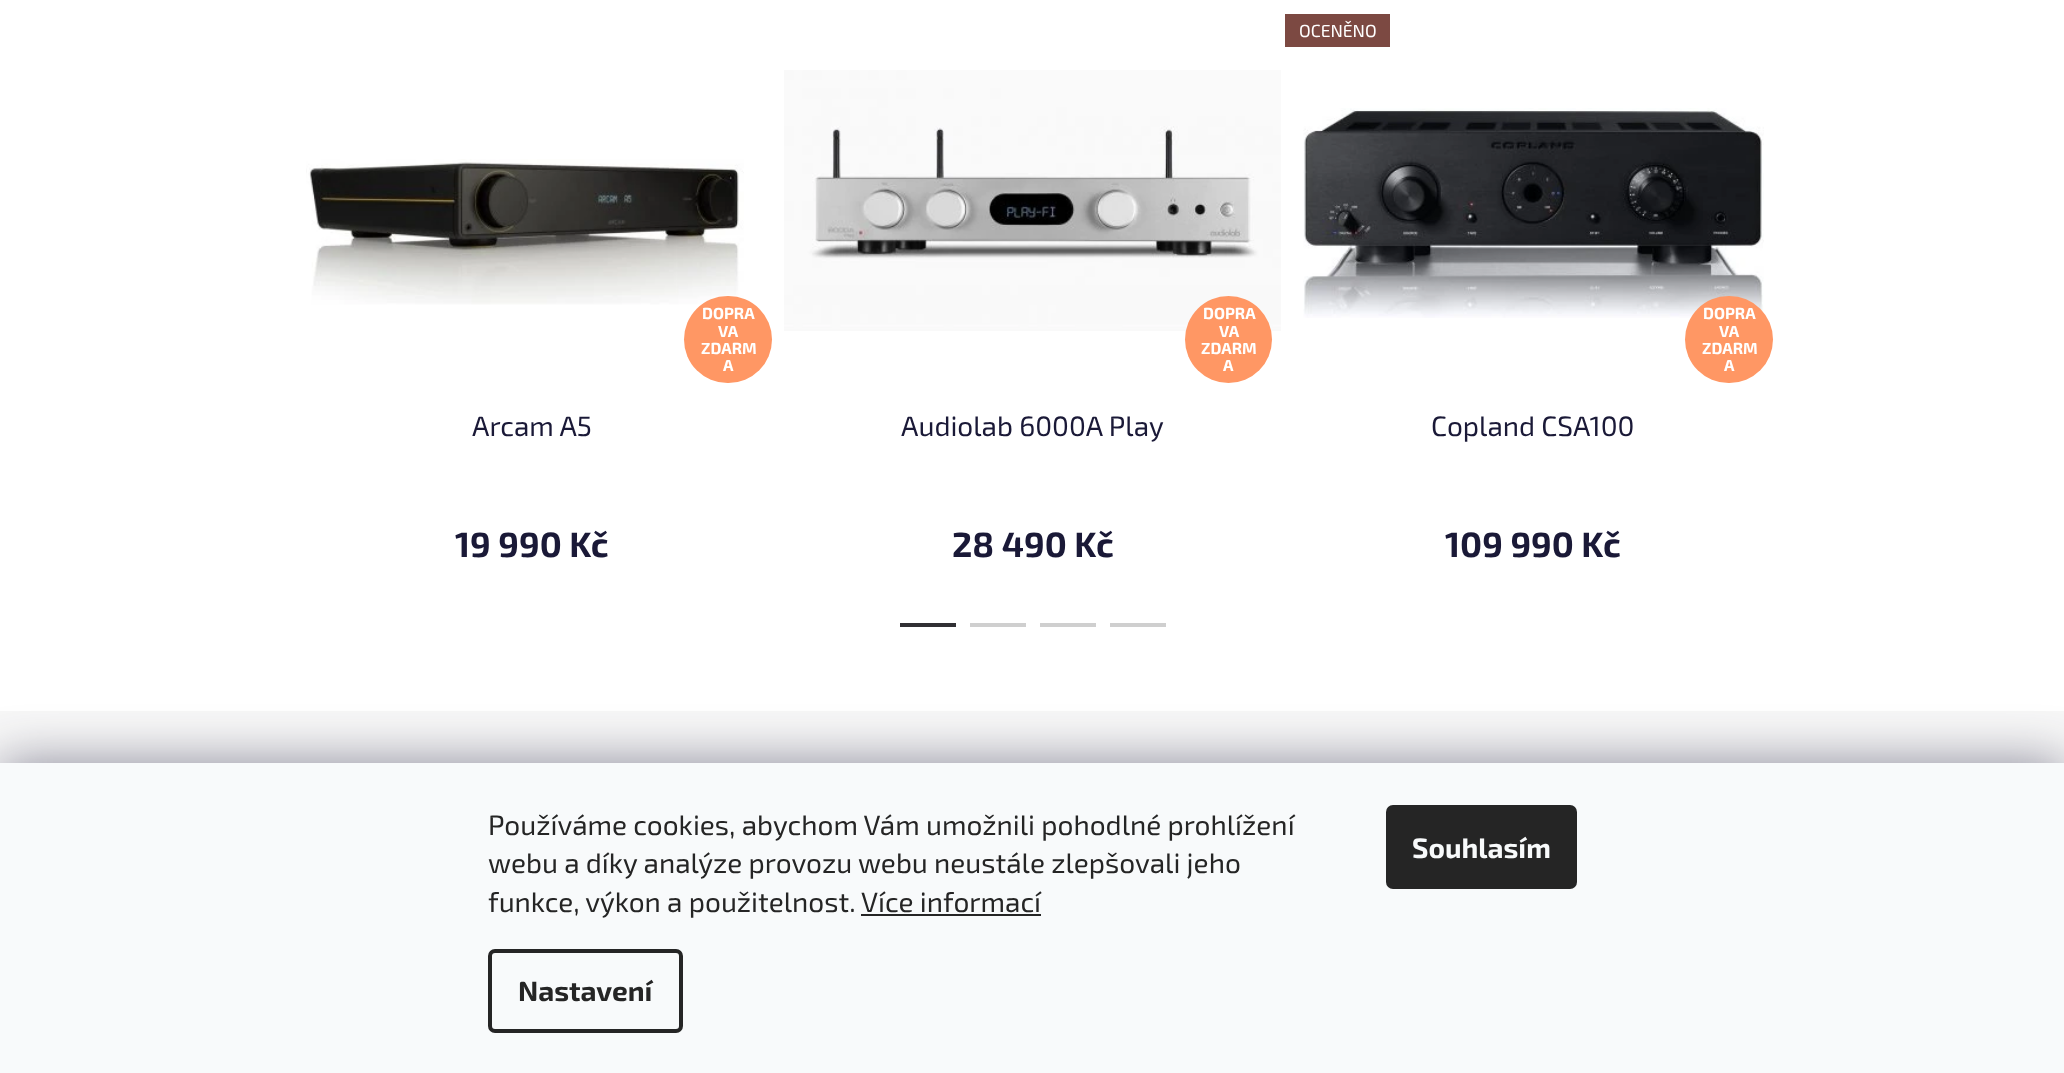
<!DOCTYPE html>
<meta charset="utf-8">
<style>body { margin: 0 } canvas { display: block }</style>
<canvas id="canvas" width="2064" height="1073"></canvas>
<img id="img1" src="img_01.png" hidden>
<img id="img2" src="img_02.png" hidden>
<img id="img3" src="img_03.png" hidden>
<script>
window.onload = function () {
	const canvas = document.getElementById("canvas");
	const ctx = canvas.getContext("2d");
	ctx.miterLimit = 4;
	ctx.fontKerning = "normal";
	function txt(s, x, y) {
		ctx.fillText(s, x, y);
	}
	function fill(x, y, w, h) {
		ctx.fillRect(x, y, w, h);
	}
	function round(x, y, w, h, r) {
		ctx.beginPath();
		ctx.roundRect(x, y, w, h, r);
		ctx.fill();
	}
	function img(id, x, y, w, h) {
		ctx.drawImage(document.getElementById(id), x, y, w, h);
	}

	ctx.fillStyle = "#FFFFFF";
	fill(0, 0, 2064, 1073);
	img("img1", 306, 159, 438, 146);
	ctx.fillStyle = "#FF9764";
	round(684, 296, 88, 87, 43.5);
	img("img2", 784, 70, 497, 261);
	ctx.beginPath();
	ctx.arc(1228.5, 339.5, 43.5, 0, Math.PI * 2);
	ctx.fill();
	ctx.fillStyle = "#7C4942";
	fill(1285, 14, 105, 33);
	img("img3", 1303, 108, 461, 210);
	ctx.fillStyle = "#FF9764";
	round(1685, 296, 88, 87, 43.5);
	ctx.fillStyle = "#313034";
	fill(900, 623, 56, 4);
	ctx.fillStyle = "#CFCFCF";
	fill(970, 623, 56, 4);
	fill(1040, 623, 56, 4);
	fill(1110, 623, 56, 4);
	ctx.fillStyle = "#F7F7F7";
	fill(0, 711, 2064, 52);
	ctx.fillStyle = "rgba(27, 25, 57, 0.5)";
	ctx.filter = "blur(26px)";
	ctx.beginPath();
	ctx.rect(0, 763, 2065, 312);
	ctx.fill();
	ctx.filter = "none";
	ctx.fillStyle = "#F8FAFB";
	fill(0, 763, 2064, 310);
	ctx.fillStyle = "#252525";
	fill(861, 914, 180, 2);
	ctx.beginPath();
	ctx.roundRect(490, 951, 191, 80, 5);
	ctx.strokeStyle = "#252525";
	ctx.lineWidth = 4;
	ctx.stroke();
	round(1386, 805, 191, 84, 7);
	ctx.font = "bold 16px 'Exo 2'";
	ctx.fillStyle = "#FFFFFF";
	txt("DOPRA", 702, 319);
	txt("VA", 718, 337);
	txt("ZDARM", 701, 354);
	txt("A", 723, 371);
	ctx.font = "28px 'Exo 2'";
	ctx.fillStyle = "#1A1937";
	txt("Arcam A5", 472, 436);
	ctx.font = "bold 35px 'Exo 2'";
	txt("19 990 Kč", 455, 557);
	ctx.font = "bold 16px 'Exo 2'";
	ctx.fillStyle = "#FFFFFF";
	txt("DOPRA", 1203, 319);
	txt("VA", 1219, 337);
	txt("ZDARM", 1201, 354);
	txt("A", 1223, 371);
	ctx.font = "28px 'Exo 2'";
	ctx.fillStyle = "#1A1937";
	txt("Audiolab 6000A Play", 901, 436);
	ctx.font = "bold 35px 'Exo 2'";
	txt("28 490 Kč", 952, 557);
	ctx.font = "17.5px 'Exo 2'";
	ctx.fillStyle = "#FFFFFF";
	txt("OCENĚNO", 1299, 37);
	ctx.font = "bold 16px 'Exo 2'";
	txt("DOPRA", 1703, 319);
	txt("VA", 1719, 337);
	txt("ZDARM", 1702, 354);
	txt("A", 1724, 371);
	ctx.font = "28px 'Exo 2'";
	ctx.fillStyle = "#1A1937";
	txt("Copland CSA100", 1431, 436);
	ctx.font = "bold 35px 'Exo 2'";
	txt("109 990 Kč", 1445, 557);
	ctx.font = "28px 'Exo 2'";
	ctx.fillStyle = "#252525";
	txt("Používáme cookies, abychom Vám umožnili pohodlné prohlížení", 488, 835);
	txt("webu a díky analýze provozu webu neustále zlepšovali jeho", 488, 873);
	txt("funkce, výkon a použitelnost.", 488, 912);
	txt("Více informací", 861, 912);
	ctx.font = "bold 28px 'Exo 2'";
	txt("Nastavení", 518, 1001);
	ctx.fillStyle = "#F8FAFB";
	txt("Souhlasím", 1412, 858);
};
</script>
